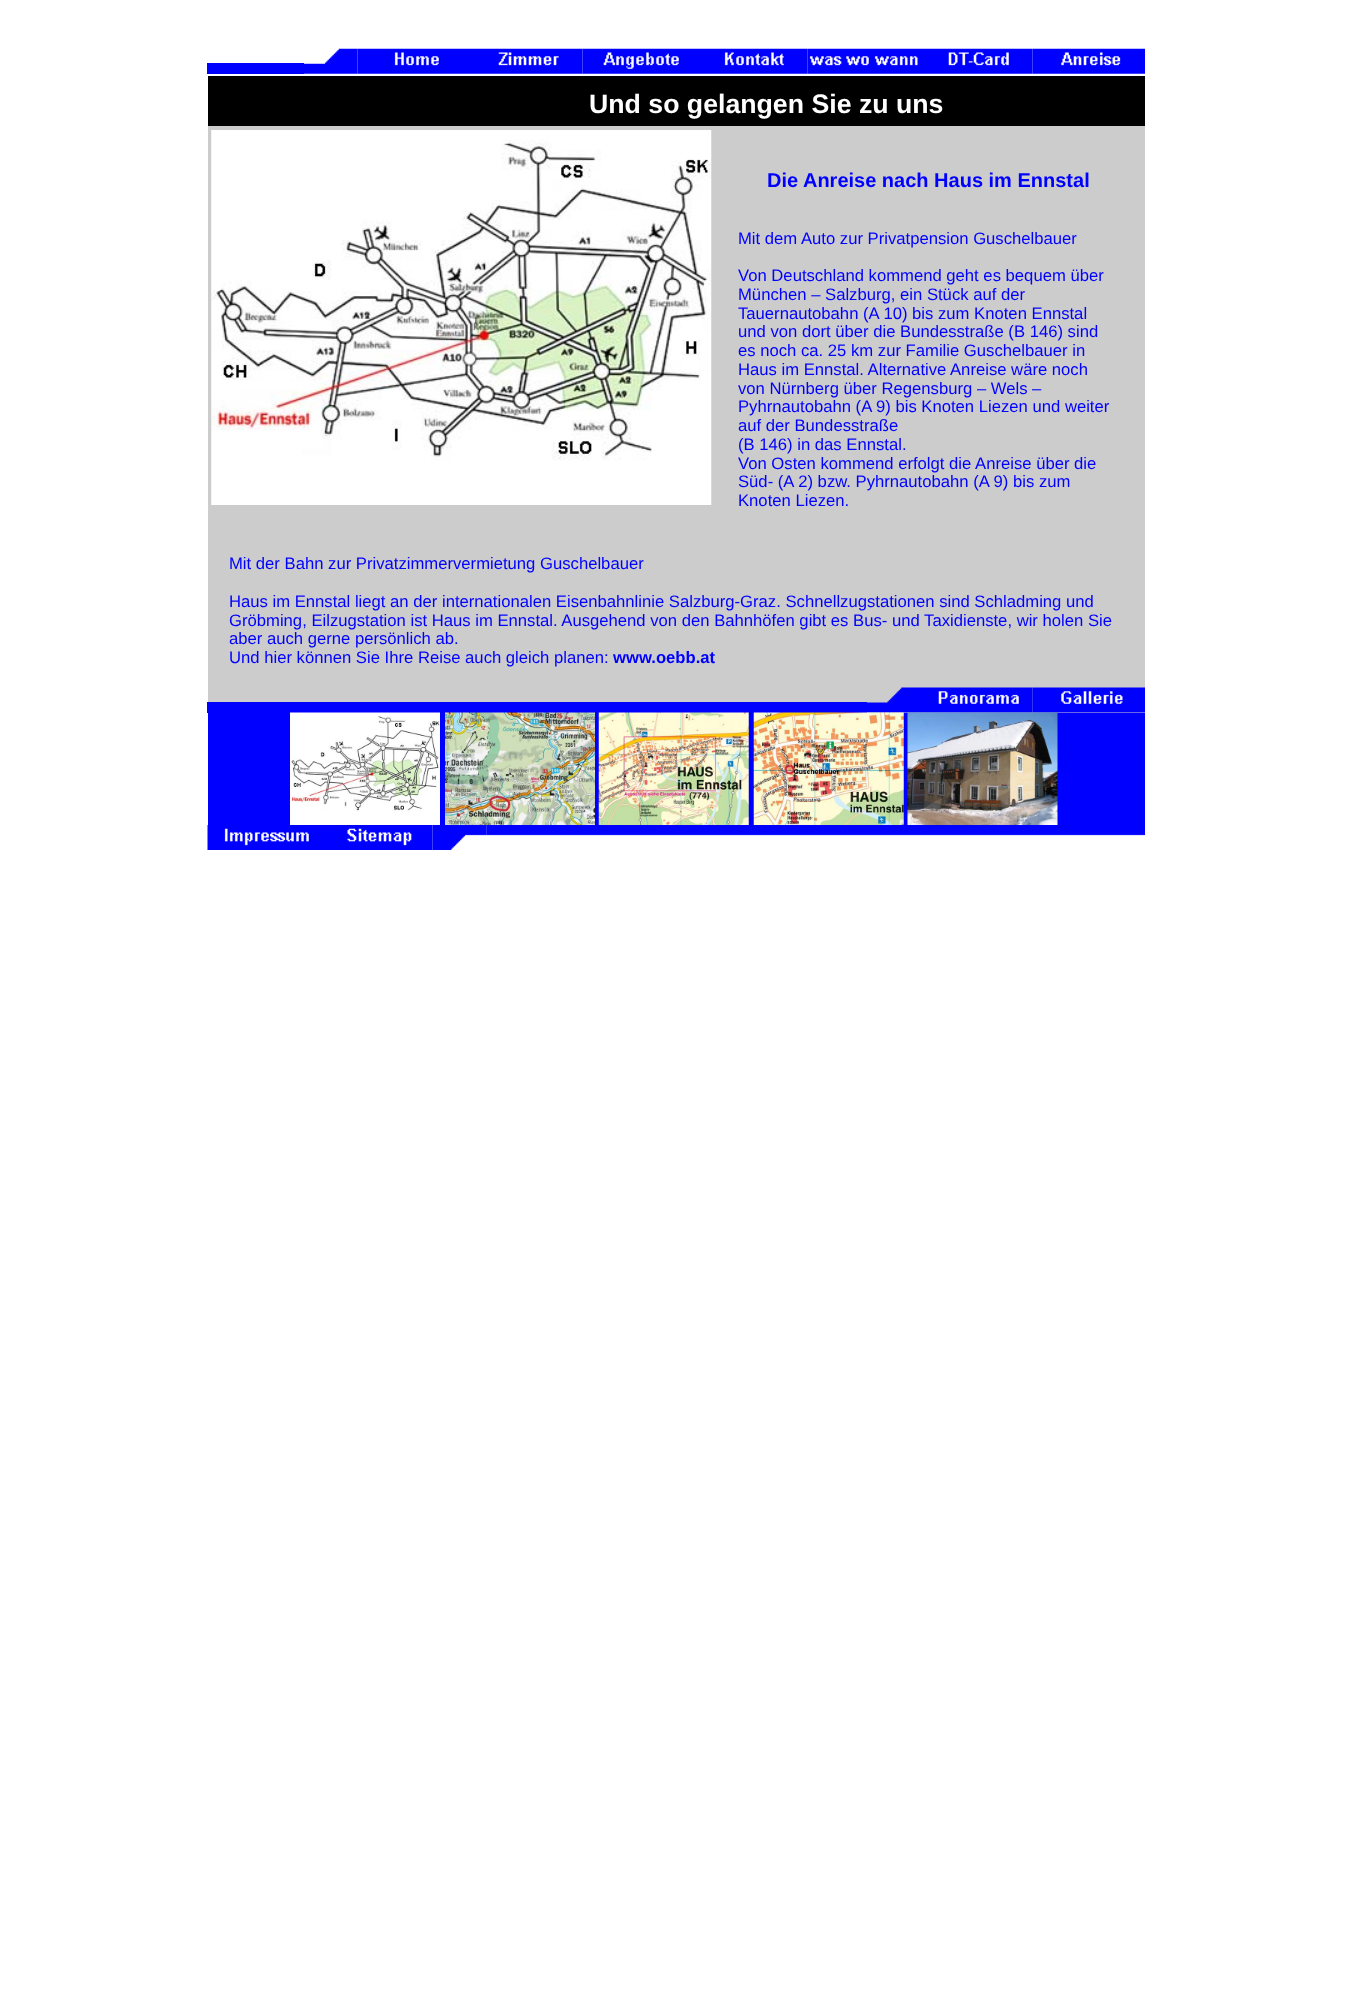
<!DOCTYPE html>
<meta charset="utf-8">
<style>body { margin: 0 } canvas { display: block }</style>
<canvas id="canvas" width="1352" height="2009"></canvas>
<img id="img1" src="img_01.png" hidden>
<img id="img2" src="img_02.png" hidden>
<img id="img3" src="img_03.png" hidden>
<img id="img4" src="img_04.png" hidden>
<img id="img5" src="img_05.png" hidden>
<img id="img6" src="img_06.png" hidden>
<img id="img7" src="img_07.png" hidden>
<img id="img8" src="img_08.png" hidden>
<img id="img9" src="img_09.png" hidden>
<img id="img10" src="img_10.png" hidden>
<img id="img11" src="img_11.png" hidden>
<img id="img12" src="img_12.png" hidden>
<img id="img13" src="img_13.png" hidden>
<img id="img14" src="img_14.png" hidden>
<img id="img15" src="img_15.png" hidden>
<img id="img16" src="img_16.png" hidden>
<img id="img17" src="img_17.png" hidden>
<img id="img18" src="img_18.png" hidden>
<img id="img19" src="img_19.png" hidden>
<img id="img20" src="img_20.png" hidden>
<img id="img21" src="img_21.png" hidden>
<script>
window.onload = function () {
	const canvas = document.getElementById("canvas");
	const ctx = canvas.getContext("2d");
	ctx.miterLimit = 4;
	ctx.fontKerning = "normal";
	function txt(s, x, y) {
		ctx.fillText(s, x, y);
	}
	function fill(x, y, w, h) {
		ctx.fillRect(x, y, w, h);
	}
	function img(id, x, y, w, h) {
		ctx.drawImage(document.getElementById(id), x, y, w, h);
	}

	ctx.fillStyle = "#FFFFFF";
	fill(0, 0, 1352, 2009);
	ctx.fillStyle = "#0000FF";
	fill(207, 63, 97, 11);
	img("img1", 304, 48, 54, 26);
	img("img2", 357, 48, 113, 26);
	img("img3", 470, 48, 113, 26);
	img("img4", 582, 48, 113, 26);
	img("img5", 695, 48, 113, 26);
	img("img6", 807, 48, 113, 26);
	img("img7", 920, 48, 113, 26);
	img("img8", 1032, 48, 113, 26);
	ctx.fillStyle = "#000000";
	fill(208, 76, 937, 50);
	ctx.fillStyle = "#CCCCCC";
	fill(208, 126, 937, 587);
	img("img9", 211, 130, 501, 375);
	ctx.fillStyle = "#0000FF";
	fill(207, 702, 660, 11);
	img("img10", 867, 687, 53, 26);
	img("img11", 920, 687, 113, 26);
	img("img12", 1032, 687, 113, 26);
	fill(208, 713, 937, 112);
	img("img13", 290, 712, 150, 113);
	img("img14", 445, 712, 150, 113);
	img("img15", 598, 712, 151, 113);
	img("img16", 753, 712, 151, 113);
	img("img17", 907, 712, 151, 113);
	img("img18", 207, 825, 113, 25);
	img("img19", 320, 825, 113, 25);
	img("img20", 432, 825, 55, 25);
	img("img21", 486, 825, 659, 11);
	ctx.font = "bold 26.7px Liberation Sans";
	ctx.fillStyle = "#FFFFFF";
	txt("Und so gelangen Sie zu uns", 589, 113);
	ctx.font = "bold 20px Liberation Sans";
	ctx.fillStyle = "#0000FF";
	txt("Die Anreise nach Haus im Ennstal", 767, 187);
	ctx.font = "16.67px Liberation Sans";
	txt("Mit dem Auto zur Privatpension Guschelbauer", 738, 244);
	txt("Von Deutschland kommend geht es bequem über", 738, 281);
	txt("München – Salzburg, ein Stück auf der", 738, 300);
	txt("Tauernautobahn (A 10) bis zum Knoten Ennstal", 738, 319);
	txt("und von dort über die Bundesstraße (B 146) sind", 738, 337);
	txt("es noch ca. 25 km zur Familie Guschelbauer in", 738, 356);
	txt("Haus im Ennstal. Alternative Anreise wäre noch", 738, 375);
	txt("von Nürnberg über Regensburg – Wels –", 738, 394);
	txt("Pyhrnautobahn (A 9) bis Knoten Liezen und weiter", 738, 412);
	txt("auf der Bundesstraße", 738, 431);
	txt("(B 146) in das Ennstal.", 738, 450);
	txt("Von Osten kommend erfolgt die Anreise über die", 738, 469);
	txt("Süd- (A 2) bzw. Pyhrnautobahn (A 9) bis zum", 738, 487);
	txt("Knoten Liezen.", 738, 506);
	txt("Mit der Bahn zur Privatzimmervermietung Guschelbauer", 229, 569);
	txt("Haus im Ennstal liegt an der internationalen Eisenbahnlinie Salzburg-Graz. Schnellzugstationen sind Schladming und", 229, 607);
	txt("Gröbming, Eilzugstation ist Haus im Ennstal. Ausgehend von den Bahnhöfen gibt es Bus- und Taxidienste, wir holen Sie", 229, 626);
	txt("aber auch gerne persönlich ab.", 229, 644);
	txt("Und hier können Sie Ihre Reise auch gleich planen:", 229, 663);
	ctx.font = "bold 16.67px Liberation Sans";
	txt("www.oebb.at", 613, 663);
};
</script>
